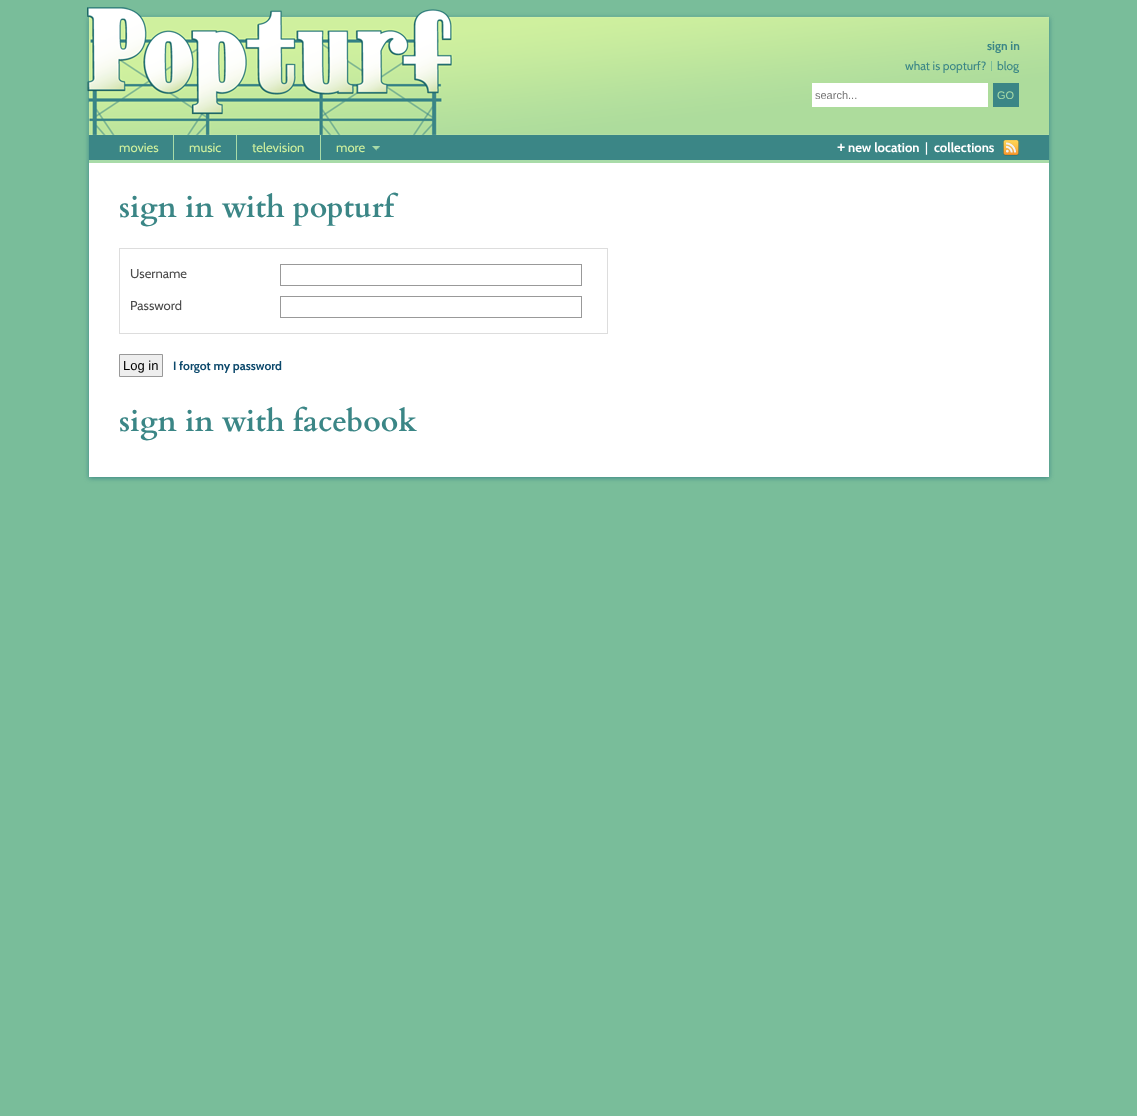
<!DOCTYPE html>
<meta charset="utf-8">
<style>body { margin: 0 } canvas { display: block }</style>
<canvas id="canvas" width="1137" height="1116"></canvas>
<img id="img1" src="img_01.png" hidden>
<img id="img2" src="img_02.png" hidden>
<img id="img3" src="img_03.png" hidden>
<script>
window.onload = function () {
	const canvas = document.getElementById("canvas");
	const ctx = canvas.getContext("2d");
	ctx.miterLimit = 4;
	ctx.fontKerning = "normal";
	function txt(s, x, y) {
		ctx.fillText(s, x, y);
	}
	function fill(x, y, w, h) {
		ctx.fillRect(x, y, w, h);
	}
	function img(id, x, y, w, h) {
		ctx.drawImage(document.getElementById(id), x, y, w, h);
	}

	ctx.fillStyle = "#79BD9A";
	fill(0, 0, 1137, 1116);
	ctx.fillStyle = "#3B8686";
	ctx.filter = "blur(2.5px)";
	ctx.beginPath();
	ctx.rect(89, 18, 960, 460);
	ctx.fill();
	ctx.filter = "none";
	ctx.fillStyle = "#FFFFFF";
	fill(89, 17, 960, 460);
	img("img1", 87, 7, 962, 128);
	ctx.fillStyle = "#79BD9A";
	fill(991, 61, 1, 10);
	ctx.fillStyle = "#FFFFFF";
	fill(812, 83, 176, 24);
	ctx.fillStyle = "#3B8686";
	fill(993, 83, 26, 24);
	fill(89, 135, 960, 25);
	ctx.fillStyle = "#A8DBA8";
	fill(89, 160, 960, 3);
	fill(173, 135, 1, 25);
	fill(236, 135, 1, 25);
	fill(320, 135, 1, 25);
	img("img2", 372, 146, 8, 5);
	img("img3", 1003, 140, 16, 16);
	ctx.strokeStyle = "#DDDDDD";
	ctx.strokeRect(119.5, 248.5, 488, 85);
	ctx.strokeStyle = "#999999";
	ctx.strokeRect(280.5, 264.5, 301, 21);
	ctx.strokeRect(280.5, 296.5, 301, 21);
	ctx.fillStyle = "#EEEEEE";
	ctx.beginPath();
	ctx.rect(119.5, 354.5, 43, 22);
	ctx.fill();
	ctx.stroke();
	ctx.font = "bold 12px Cabin";
	ctx.fillStyle = "#3B8686";
	txt("sign in", 987, 50);
	ctx.font = "12px Cabin";
	txt("what is popturf?", 905, 70);
	txt("blog", 997, 70);
	ctx.font = "11px Liberation Sans";
	ctx.fillStyle = "#757575";
	txt("search...", 815, 99);
	ctx.fillStyle = "#A8DBA8";
	txt("GO", 997, 99);
	ctx.font = "13px Cabin";
	ctx.fillStyle = "#CFF09E";
	txt("movies", 119, 152);
	txt("music", 189, 152);
	txt("television", 252, 152);
	txt("more", 336, 152);
	ctx.font = "bold 14px Liberation Sans";
	ctx.fillStyle = "#FFFFFF";
	txt("+", 837, 152);
	ctx.font = "bold 13px Cabin";
	txt("new location", 848, 152);
	ctx.font = "13px Cabin";
	txt("|", 925, 152);
	ctx.font = "bold 13px Cabin";
	txt("collections", 934, 152);
	ctx.font = "bold 30px Cardo";
	ctx.fillStyle = "#3B8686";
	txt("sign in with popturf", 119, 217);
	ctx.font = "13px Cabin";
	ctx.fillStyle = "#4B4B4B";
	txt("Username", 130, 278);
	txt("Password", 130, 310);
	ctx.font = "13px Liberation Sans";
	ctx.fillStyle = "#000000";
	txt("Log in", 123, 370);
	ctx.font = "bold 12px Cabin";
	ctx.fillStyle = "#0B486B";
	txt("I forgot my password", 173, 370);
	ctx.font = "bold 30px Cardo";
	ctx.fillStyle = "#3B8686";
	txt("sign in with facebook", 119, 431);
};
</script>
